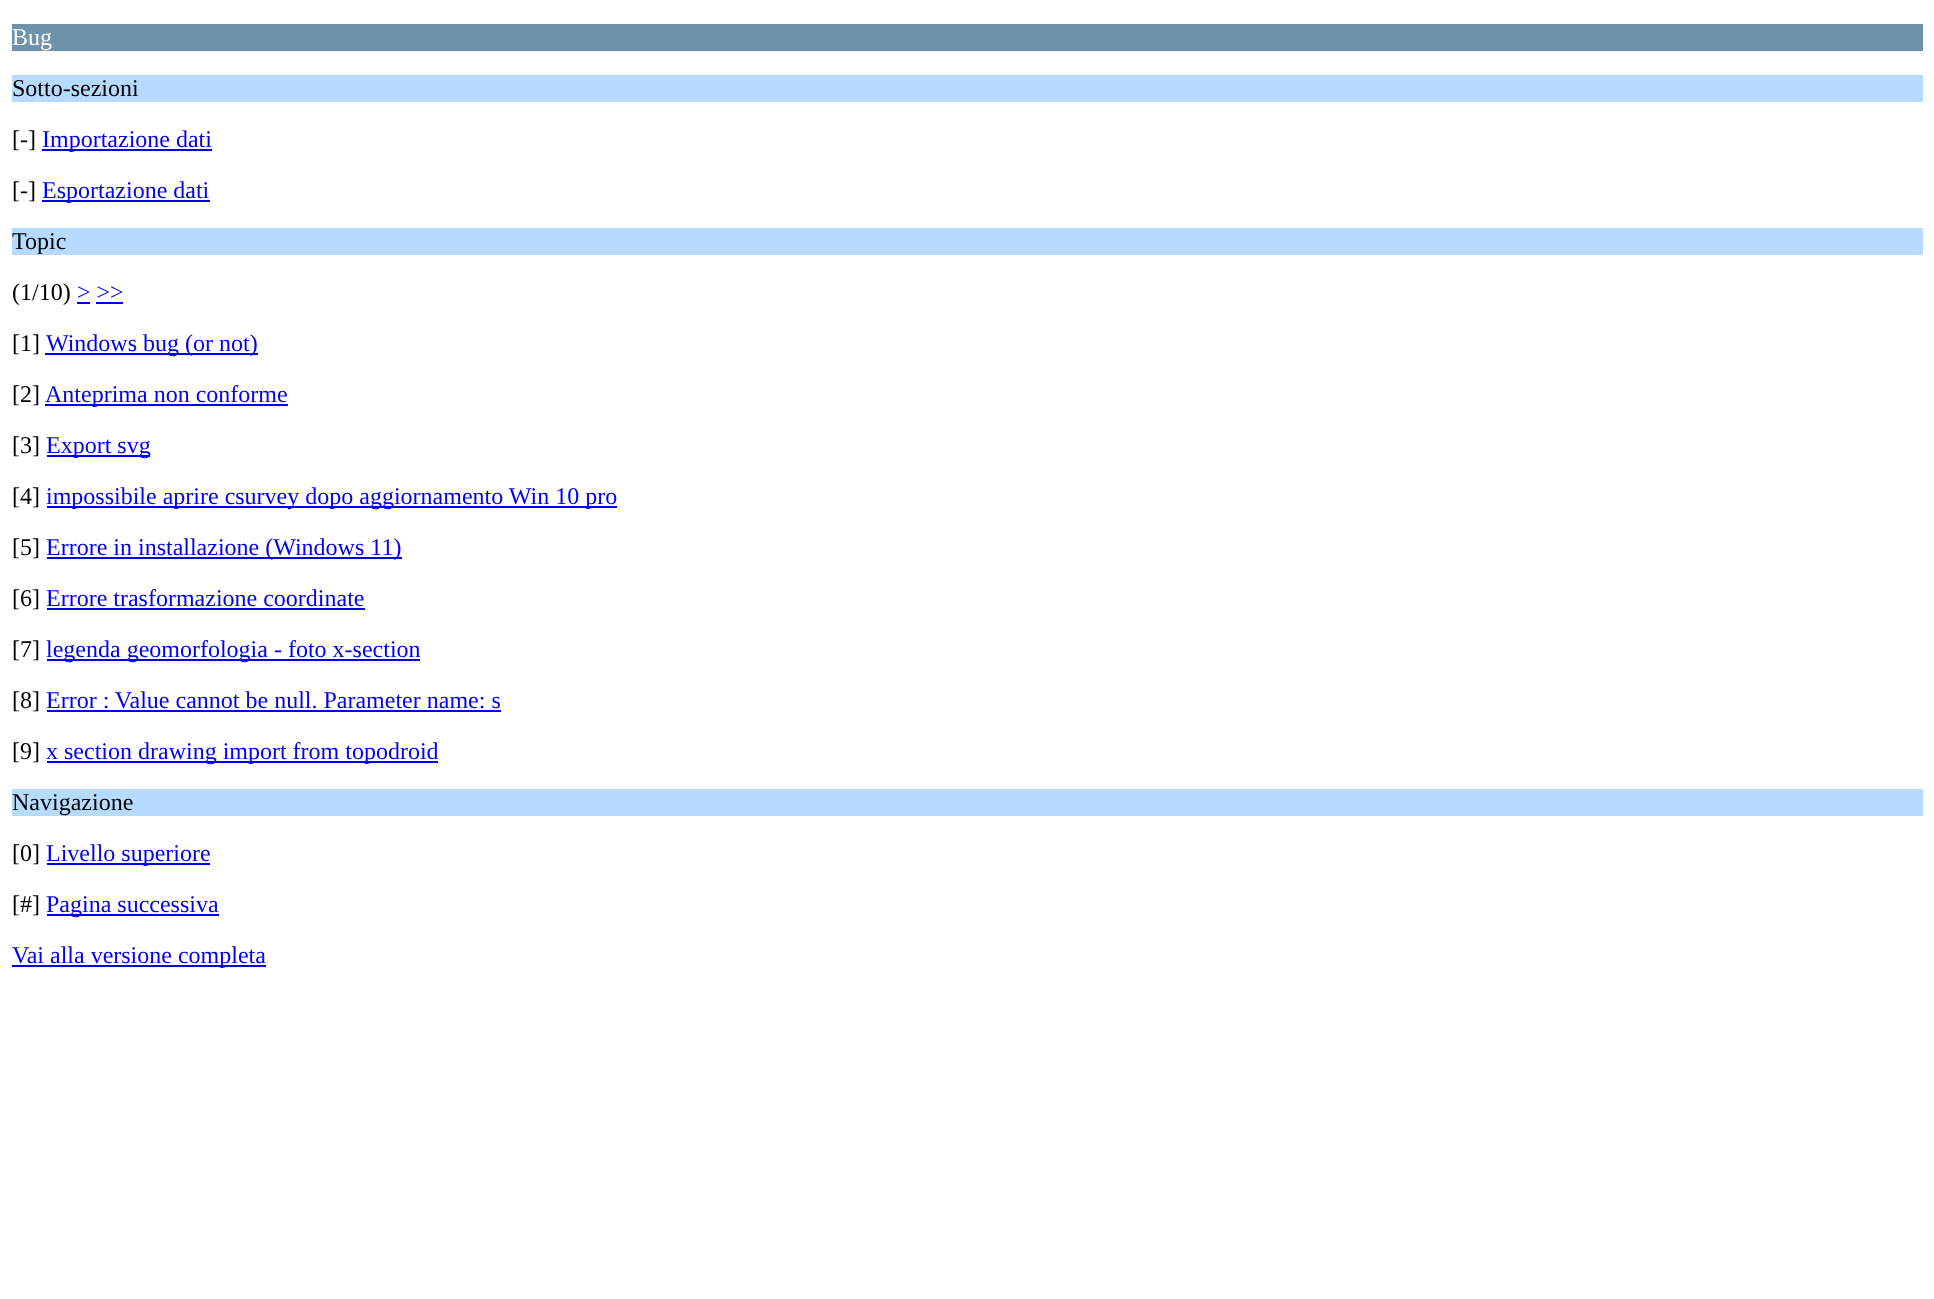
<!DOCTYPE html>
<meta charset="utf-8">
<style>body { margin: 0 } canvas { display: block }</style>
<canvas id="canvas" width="1934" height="1299"></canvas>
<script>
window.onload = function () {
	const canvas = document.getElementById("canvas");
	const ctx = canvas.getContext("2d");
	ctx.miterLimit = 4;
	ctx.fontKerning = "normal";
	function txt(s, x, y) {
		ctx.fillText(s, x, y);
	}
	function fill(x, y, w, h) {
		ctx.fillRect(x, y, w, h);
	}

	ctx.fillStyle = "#FFFFFF";
	fill(0, 0, 1934, 1299);
	ctx.fillStyle = "#6D92AA";
	fill(12, 24, 1911, 27);
	ctx.fillStyle = "#B6DBFF";
	fill(12, 75, 1911, 27);
	ctx.fillStyle = "#0000EE";
	fill(42, 149, 170, 2);
	fill(42, 200, 168, 2);
	ctx.fillStyle = "#B6DBFF";
	fill(12, 228, 1911, 27);
	ctx.fillStyle = "#0000EE";
	fill(77, 302, 13, 2);
	fill(96, 302, 27, 2);
	fill(45, 353, 213, 2);
	fill(45, 404, 243, 2);
	fill(47, 455, 103, 2);
	fill(47, 506, 570, 2);
	fill(47, 557, 355, 2);
	fill(47, 608, 318, 2);
	fill(47, 659, 373, 2);
	fill(47, 710, 454, 2);
	fill(47, 761, 391, 2);
	ctx.fillStyle = "#B6DBFF";
	fill(12, 789, 1911, 27);
	ctx.fillStyle = "#0000EE";
	fill(47, 863, 163, 2);
	fill(47, 914, 172, 2);
	fill(12, 965, 254, 2);
	ctx.font = "24px Liberation Serif";
	ctx.fillStyle = "#FFFFFF";
	txt("Bug", 12, 45);
	ctx.fillStyle = "#000000";
	txt("Sotto-sezioni", 12, 96);
	txt("[-]", 12, 147);
	ctx.fillStyle = "#0000EE";
	txt("Importazione dati", 42, 147);
	ctx.fillStyle = "#000000";
	txt("[-]", 12, 198);
	ctx.fillStyle = "#0000EE";
	txt("Esportazione dati", 42, 198);
	ctx.fillStyle = "#000000";
	txt("Topic", 12, 249);
	txt("(1/10)", 12, 300);
	ctx.fillStyle = "#0000EE";
	txt("> >>", 77, 300);
	ctx.fillStyle = "#000000";
	txt("[1]", 12, 351);
	ctx.fillStyle = "#0000EE";
	txt("Windows bug (or not)", 46, 351);
	ctx.fillStyle = "#000000";
	txt("[2]", 12, 402);
	ctx.fillStyle = "#0000EE";
	txt("Anteprima non conforme", 45, 402);
	ctx.fillStyle = "#000000";
	txt("[3]", 12, 453);
	ctx.fillStyle = "#0000EE";
	txt("Export svg", 46, 453);
	ctx.fillStyle = "#000000";
	txt("[4]", 12, 504);
	ctx.fillStyle = "#0000EE";
	txt("impossibile aprire csurvey dopo aggiornamento Win 10 pro", 46, 504);
	ctx.fillStyle = "#000000";
	txt("[5]", 12, 555);
	ctx.fillStyle = "#0000EE";
	txt("Errore in installazione (Windows 11)", 46, 555);
	ctx.fillStyle = "#000000";
	txt("[6]", 12, 606);
	ctx.fillStyle = "#0000EE";
	txt("Errore trasformazione coordinate", 46, 606);
	ctx.fillStyle = "#000000";
	txt("[7]", 12, 657);
	ctx.fillStyle = "#0000EE";
	txt("legenda geomorfologia - foto x-section", 46, 657);
	ctx.fillStyle = "#000000";
	txt("[8]", 12, 708);
	ctx.fillStyle = "#0000EE";
	txt("Error : Value cannot be null. Parameter name: s", 46, 708);
	ctx.fillStyle = "#000000";
	txt("[9]", 12, 759);
	ctx.fillStyle = "#0000EE";
	txt("x section drawing import from topodroid", 46, 759);
	ctx.fillStyle = "#000000";
	txt("Navigazione", 12, 810);
	txt("[0]", 12, 861);
	ctx.fillStyle = "#0000EE";
	txt("Livello superiore", 46, 861);
	ctx.fillStyle = "#000000";
	txt("[#]", 12, 912);
	ctx.fillStyle = "#0000EE";
	txt("Pagina successiva", 46, 912);
	txt("Vai alla versione completa", 12, 963);
};
</script>
